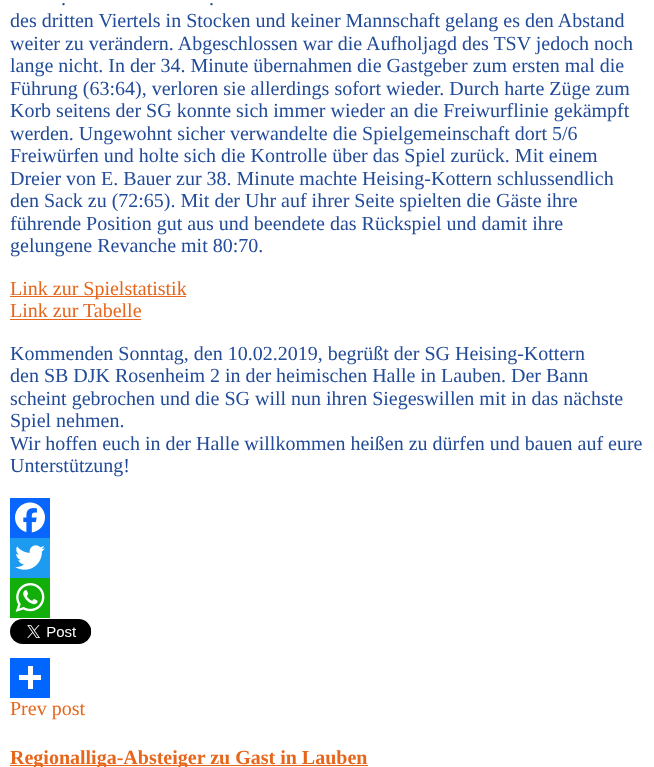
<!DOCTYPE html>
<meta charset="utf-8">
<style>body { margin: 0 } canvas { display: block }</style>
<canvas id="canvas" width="654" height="767"></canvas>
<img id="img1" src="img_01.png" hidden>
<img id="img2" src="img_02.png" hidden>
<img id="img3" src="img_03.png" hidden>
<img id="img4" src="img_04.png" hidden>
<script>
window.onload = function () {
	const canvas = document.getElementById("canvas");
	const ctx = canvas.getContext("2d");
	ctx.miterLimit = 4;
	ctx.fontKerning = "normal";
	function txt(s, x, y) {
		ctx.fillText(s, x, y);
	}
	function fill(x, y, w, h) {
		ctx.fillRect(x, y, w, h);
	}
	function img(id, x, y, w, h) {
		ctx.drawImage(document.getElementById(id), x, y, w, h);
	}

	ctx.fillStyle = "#FFFFFF";
	fill(0, 0, 654, 767);
	ctx.fillStyle = "#E6661C";
	fill(10, 296, 176, 1);
	fill(10, 319, 131, 1);
	ctx.fillStyle = "#0866FF";
	fill(10, 498, 40, 40);
	img("img1", 15, 502, 30, 31);
	ctx.fillStyle = "#1D9BF0";
	fill(10, 538, 40, 40);
	img("img2", 15, 545, 30, 25);
	ctx.fillStyle = "#12AF0A";
	fill(10, 578, 40, 40);
	img("img3", 15, 583, 30, 29);
	img("img4", 10, 619, 82, 25);
	ctx.fillStyle = "#0166FF";
	fill(10, 658, 40, 40);
	ctx.fillStyle = "#FFFFFF";
	fill(28, 666, 5, 23);
	fill(19, 675, 22, 5);
	ctx.fillStyle = "#E6661C";
	fill(10, 765, 358, 1);
	ctx.font = "20px Liberation Serif";
	ctx.fillStyle = "#224B98";
	txt(".", 61, 5);
	txt(".", 209, 5);
	txt("des dritten Viertels in Stocken und keiner Mannschaft gelang es den Abstand", 10, 27);
	txt("weiter zu verändern. Abgeschlossen war die Aufholjagd des TSV jedoch noch", 10, 50);
	txt("lange nicht. In der 34. Minute übernahmen die Gastgeber zum ersten mal die", 10, 72);
	txt("Führung (63:64), verloren sie allerdings sofort wieder. Durch harte Züge zum", 10, 95);
	txt("Korb seitens der SG konnte sich immer wieder an die Freiwurflinie gekämpft", 10, 117);
	txt("werden. Ungewohnt sicher verwandelte die Spielgemeinschaft dort 5/6", 10, 140);
	txt("Freiwürfen und holte sich die Kontrolle über das Spiel zurück. Mit einem", 10, 162);
	txt("Dreier von E. Bauer zur 38. Minute machte Heising-Kottern schlussendlich", 10, 185);
	txt("den Sack zu (72:65). Mit der Uhr auf ihrer Seite spielten die Gäste ihre", 10, 207);
	txt("führende Position gut aus und beendete das Rückspiel und damit ihre", 10, 230);
	txt("gelungene Revanche mit 80:70.", 10, 252);
	ctx.fillStyle = "#E6661C";
	txt("Link zur Spielstatistik", 10, 295);
	txt("Link zur Tabelle", 10, 317);
	ctx.fillStyle = "#224B98";
	txt("Kommenden Sonntag, den 10.02.2019, begrüßt der SG Heising-Kottern", 10, 360);
	txt("den SB DJK Rosenheim 2 in der heimischen Halle in Lauben. Der Bann", 10, 382);
	txt("scheint gebrochen und die SG will nun ihren Siegeswillen mit in das nächste", 10, 405);
	txt("Spiel nehmen.", 10, 427);
	txt("Wir hoffen euch in der Halle willkommen heißen zu dürfen und bauen auf eure", 10, 450);
	txt("Unterstützung!", 10, 472);
	ctx.fillStyle = "#E6661C";
	txt("Prev post", 10, 715);
	ctx.font = "bold 20px Liberation Serif";
	txt("Regionalliga-Absteiger zu Gast in Lauben", 10, 764);
};
</script>
